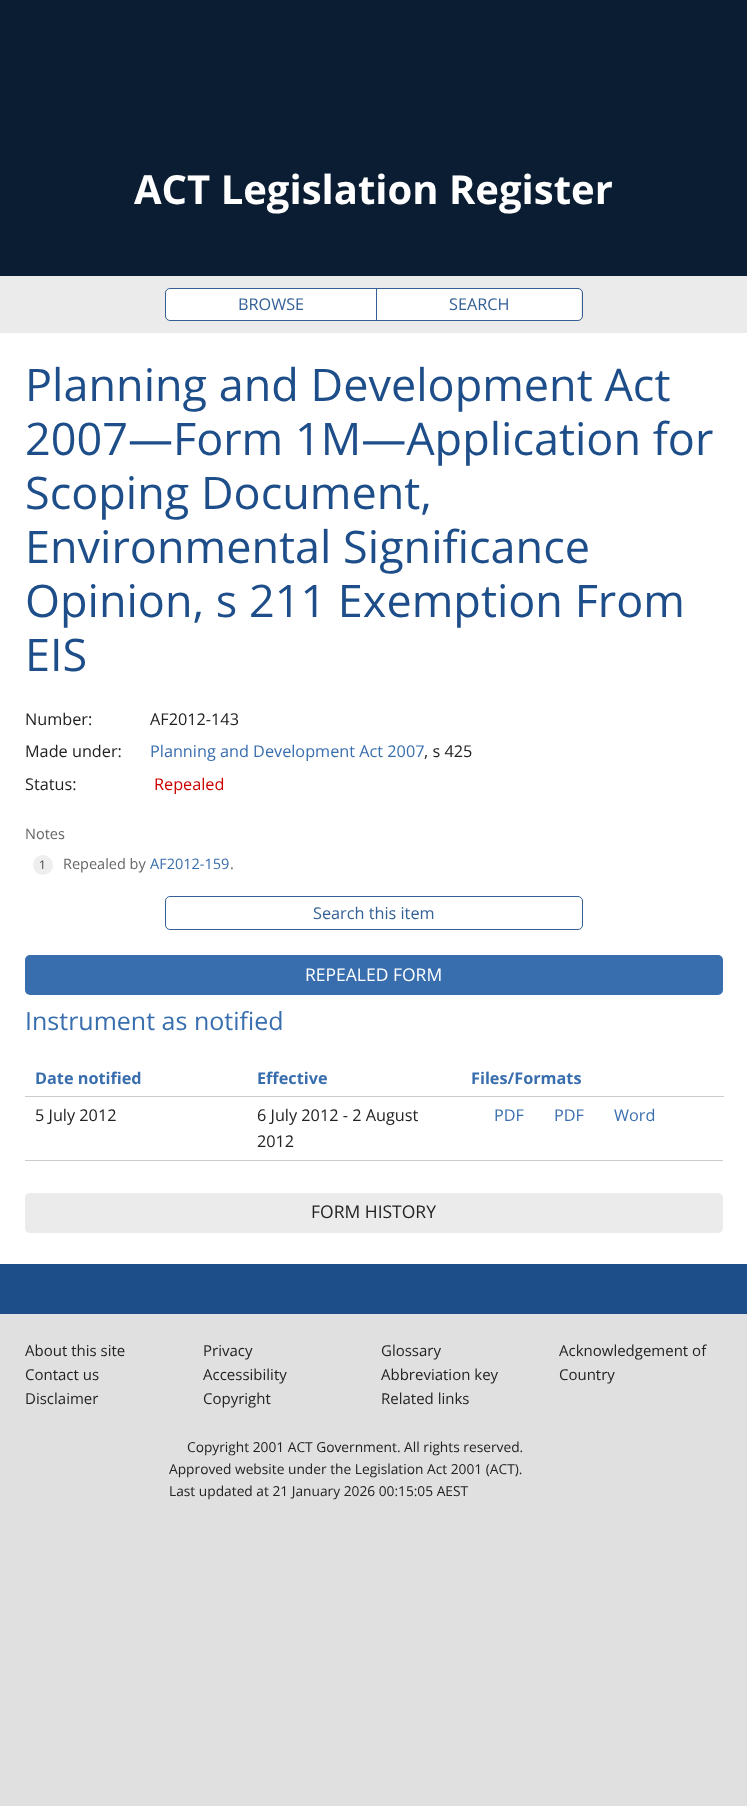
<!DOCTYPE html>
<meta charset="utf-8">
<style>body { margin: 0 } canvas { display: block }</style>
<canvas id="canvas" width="747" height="1806"></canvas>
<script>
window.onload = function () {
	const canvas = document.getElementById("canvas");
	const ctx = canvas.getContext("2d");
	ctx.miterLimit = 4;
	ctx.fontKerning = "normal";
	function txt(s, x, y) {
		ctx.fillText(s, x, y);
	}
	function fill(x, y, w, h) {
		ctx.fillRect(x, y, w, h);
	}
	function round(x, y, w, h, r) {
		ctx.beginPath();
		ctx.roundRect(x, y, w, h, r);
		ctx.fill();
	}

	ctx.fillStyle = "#E0E0E0";
	fill(0, 0, 747, 1806);
	ctx.fillStyle = "#FFFFFF";
	fill(0, 333, 747, 931);
	ctx.fillStyle = "#0B1D33";
	fill(0, 0, 747, 276);
	ctx.fillStyle = "#EBEBEB";
	fill(0, 276, 747, 57);
	ctx.fillStyle = "#FFFFFF";
	round(166, 289, 415, 31, 4);
	ctx.beginPath();
	ctx.roundRect(165.5, 288.5, 417, 32, 4.5);
	ctx.strokeStyle = "#346095";
	ctx.stroke();
	ctx.fillStyle = "#346095";
	fill(376, 289, 1, 31);
	ctx.fillStyle = "#EEEEEE";
	ctx.beginPath();
	ctx.arc(43, 865, 10, 0, Math.PI * 2);
	ctx.fill();
	ctx.beginPath();
	ctx.roundRect(165.5, 896.5, 417, 33, 4.5);
	ctx.stroke();
	ctx.fillStyle = "#396EAE";
	round(25, 955, 698, 40, 5);
	ctx.fillStyle = "#CCCCCC";
	fill(25, 1160, 698, 1);
	fill(25, 1096, 699, 1);
	ctx.fillStyle = "#EBEBEB";
	round(25, 1193, 698, 40, 5);
	ctx.fillStyle = "#1D4E89";
	fill(0, 1264, 747, 50);
	ctx.font = "bold 40px Open Sans";
	ctx.fillStyle = "#FFFFFF";
	txt("ACT Legislation Register", 134, 204);
	ctx.font = "16.25px Open Sans";
	ctx.fillStyle = "#346095";
	txt("BROWSE", 238, 310);
	txt("SEARCH", 449, 310);
	ctx.font = "45px Open Sans";
	ctx.fillStyle = "#1D4E89";
	txt("Planning and Development Act", 25, 401);
	txt("2007—Form 1M—Application for", 25, 455);
	txt("Scoping Document,", 25, 509);
	txt("Environmental Significance", 25, 563);
	txt("Opinion, s 211 Exemption From", 25, 617);
	txt("EIS", 25, 671);
	ctx.font = "16.25px Open Sans";
	ctx.fillStyle = "#222222";
	txt("Number:", 25, 725);
	txt("AF2012-143", 150, 725);
	txt("Made under:", 25, 757);
	ctx.fillStyle = "#396EAE";
	txt("Planning and Development Act 2007", 150, 757);
	ctx.fillStyle = "#222222";
	txt(", s 425", 424, 757);
	txt("Status:", 25, 790);
	ctx.fillStyle = "#CC0000";
	txt("Repealed", 154, 790);
	ctx.font = "14.5px Open Sans";
	ctx.fillStyle = "#666666";
	txt("Notes", 25, 839);
	ctx.font = "12px Open Sans";
	ctx.fillStyle = "#444444";
	txt("1", 39, 869);
	ctx.font = "14.5px Open Sans";
	ctx.fillStyle = "#666666";
	txt("Repealed by", 63, 869);
	ctx.fillStyle = "#396EAE";
	txt("AF2012-159", 150, 869);
	ctx.fillStyle = "#666666";
	txt(".", 230, 869);
	ctx.font = "16.25px Open Sans";
	ctx.fillStyle = "#346095";
	txt("Search this item", 313, 919);
	ctx.font = "17.5px Open Sans";
	ctx.fillStyle = "#FFFFFF";
	txt("REPEALED FORM", 305, 981);
	ctx.font = "25px Open Sans";
	ctx.fillStyle = "#396EAE";
	txt("Instrument as notified", 25, 1030);
	ctx.font = "bold 16.25px Open Sans";
	txt("Date notified", 35, 1084);
	txt("Effective", 257, 1084);
	txt("Files/Formats", 471, 1084);
	ctx.font = "16.25px Open Sans";
	ctx.fillStyle = "#222222";
	txt("5 July 2012", 35, 1121);
	txt("6 July 2012 - 2 August", 257, 1121);
	txt("2012", 257, 1147);
	ctx.fillStyle = "#396EAE";
	txt("PDF", 494, 1121);
	txt("PDF", 554, 1121);
	txt("Word", 614, 1121);
	ctx.font = "17.5px Open Sans";
	ctx.fillStyle = "#222222";
	txt("FORM HISTORY", 311, 1218);
	ctx.font = "15px Open Sans";
	txt("About this site", 25, 1356);
	txt("Privacy", 203, 1356);
	txt("Glossary", 381, 1356);
	txt("Acknowledgement of", 559, 1356);
	txt("Country", 559, 1380);
	txt("Contact us", 25, 1380);
	txt("Accessibility", 203, 1380);
	txt("Abbreviation key", 381, 1380);
	txt("Disclaimer", 25, 1404);
	txt("Copyright", 203, 1404);
	txt("Related links", 381, 1404);
	ctx.font = "13.75px Open Sans";
	txt("Copyright 2001 ACT Government. All rights reserved.", 187, 1452);
	txt("Approved website under the Legislation Act 2001 (ACT).", 169, 1474);
	txt("Last updated at 21 January 2026 00:15:05 AEST", 169, 1496);
};
</script>
